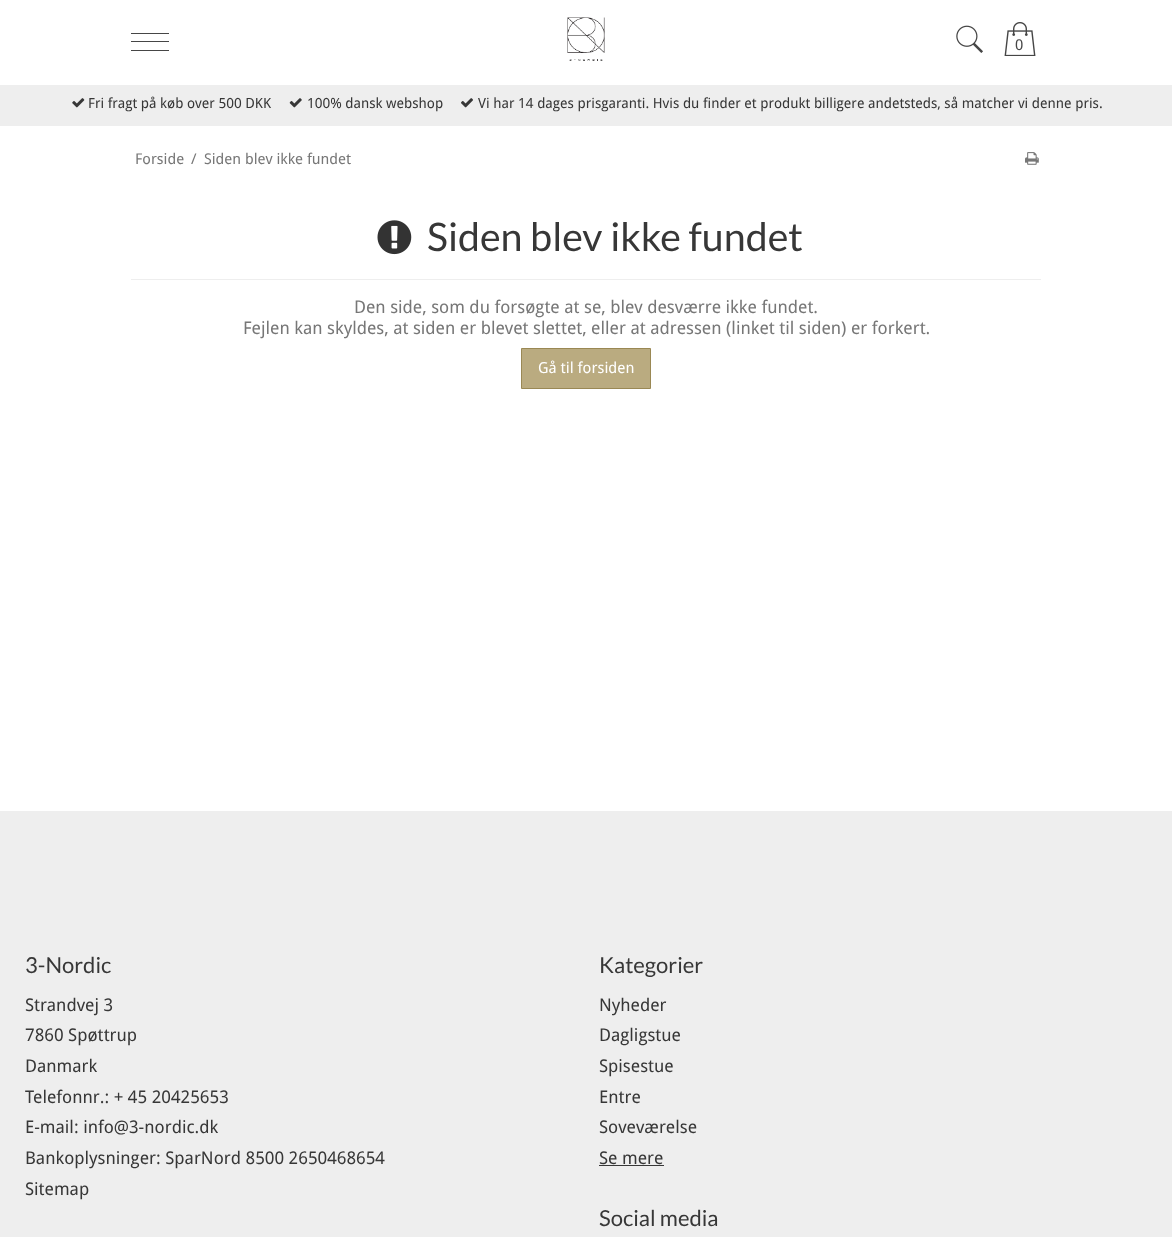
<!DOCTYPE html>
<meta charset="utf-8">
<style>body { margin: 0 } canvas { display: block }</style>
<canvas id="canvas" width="1172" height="1237"></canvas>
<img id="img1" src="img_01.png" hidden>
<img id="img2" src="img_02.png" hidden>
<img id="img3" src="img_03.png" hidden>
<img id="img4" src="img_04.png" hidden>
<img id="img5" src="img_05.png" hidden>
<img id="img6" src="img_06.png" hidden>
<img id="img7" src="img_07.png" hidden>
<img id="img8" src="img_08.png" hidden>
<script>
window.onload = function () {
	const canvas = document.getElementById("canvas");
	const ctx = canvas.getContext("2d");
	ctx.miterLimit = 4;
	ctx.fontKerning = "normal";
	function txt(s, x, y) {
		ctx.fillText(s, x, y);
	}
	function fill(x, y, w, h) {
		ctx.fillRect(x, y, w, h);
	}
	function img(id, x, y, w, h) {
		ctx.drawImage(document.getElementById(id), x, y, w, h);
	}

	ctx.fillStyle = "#FFFFFF";
	fill(0, 0, 1172, 1237);
	ctx.fillStyle = "#464646";
	fill(131, 41, 38, 1);
	fill(131, 33, 38, 1);
	fill(131, 50, 38, 1);
	img("img1", 567, 17, 38, 44);
	img("img2", 956, 25, 27, 28);
	img("img3", 1004, 22, 32, 34);
	ctx.fillStyle = "#EEEEEE";
	fill(0, 85, 1172, 41);
	img("img4", 72, 98, 13, 10);
	img("img5", 289, 98, 13, 10);
	img("img6", 461, 98, 12, 10);
	img("img7", 1025, 152, 14, 13);
	fill(131, 279, 910, 1);
	img("img8", 377, 220, 35, 35);
	ctx.fillStyle = "#BAAB80";
	ctx.beginPath();
	ctx.rect(521.5, 348.5, 129, 40);
	ctx.fill();
	ctx.strokeStyle = "#9A8854";
	ctx.stroke();
	ctx.fillStyle = "#EEEEEE";
	fill(0, 811, 1172, 426);
	ctx.fillStyle = "#373737";
	fill(599, 1165, 65, 1);
	ctx.font = "15px Droid Sans";
	ctx.fillStyle = "#464646";
	txt("0", 1015, 50);
	ctx.font = "14px Droid Sans";
	ctx.fillStyle = "#373737";
	txt("Fri fragt på køb over 500 DKK", 88, 108);
	txt("100% dansk webshop", 307, 108);
	txt("Vi har 14 dages prisgaranti. Hvis du finder et produkt billigere andetsteds, så matcher vi denne pris.", 478, 108);
	ctx.font = "14.9px Droid Sans";
	ctx.fillStyle = "#777777";
	txt("Forside", 135, 164);
	txt("/", 191, 164);
	txt("Siden blev ikke fundet", 204, 164);
	ctx.font = "39.4px Lato";
	ctx.fillStyle = "#373737";
	txt("Siden blev ikke fundet", 427, 251);
	ctx.font = "17.5px Droid Sans";
	ctx.fillStyle = "#777777";
	txt("Den side, som du forsøgte at se, blev desværre ikke fundet.", 354, 313);
	txt("Fejlen kan skyldes, at siden er blevet slettet, eller at adressen (linket til siden) er forkert.", 243, 334);
	ctx.font = "15.25px Droid Sans";
	ctx.fillStyle = "#FFFFFF";
	txt("Gå til forsiden", 538, 373);
	ctx.font = "22px Lato";
	ctx.fillStyle = "#373737";
	txt("3-Nordic", 25, 973);
	ctx.font = "17.5px Droid Sans";
	txt("Strandvej 3", 25, 1011);
	txt("7860 Spøttrup", 25, 1041);
	txt("Danmark", 25, 1072);
	txt("Telefonnr.: + 45 20425653", 25, 1103);
	txt("E-mail: info@3-nordic.dk", 25, 1133);
	txt("Bankoplysninger: SparNord 8500 2650468654", 25, 1164);
	txt("Sitemap", 25, 1195);
	ctx.font = "22px Lato";
	txt("Kategorier", 599, 973);
	ctx.font = "17.5px Droid Sans";
	txt("Nyheder", 599, 1011);
	txt("Dagligstue", 599, 1041);
	txt("Spisestue", 599, 1072);
	txt("Entre", 599, 1103);
	txt("Soveværelse", 599, 1133);
	txt("Se mere", 599, 1164);
	ctx.font = "22px Lato";
	txt("Social media", 599, 1226);
};
</script>
